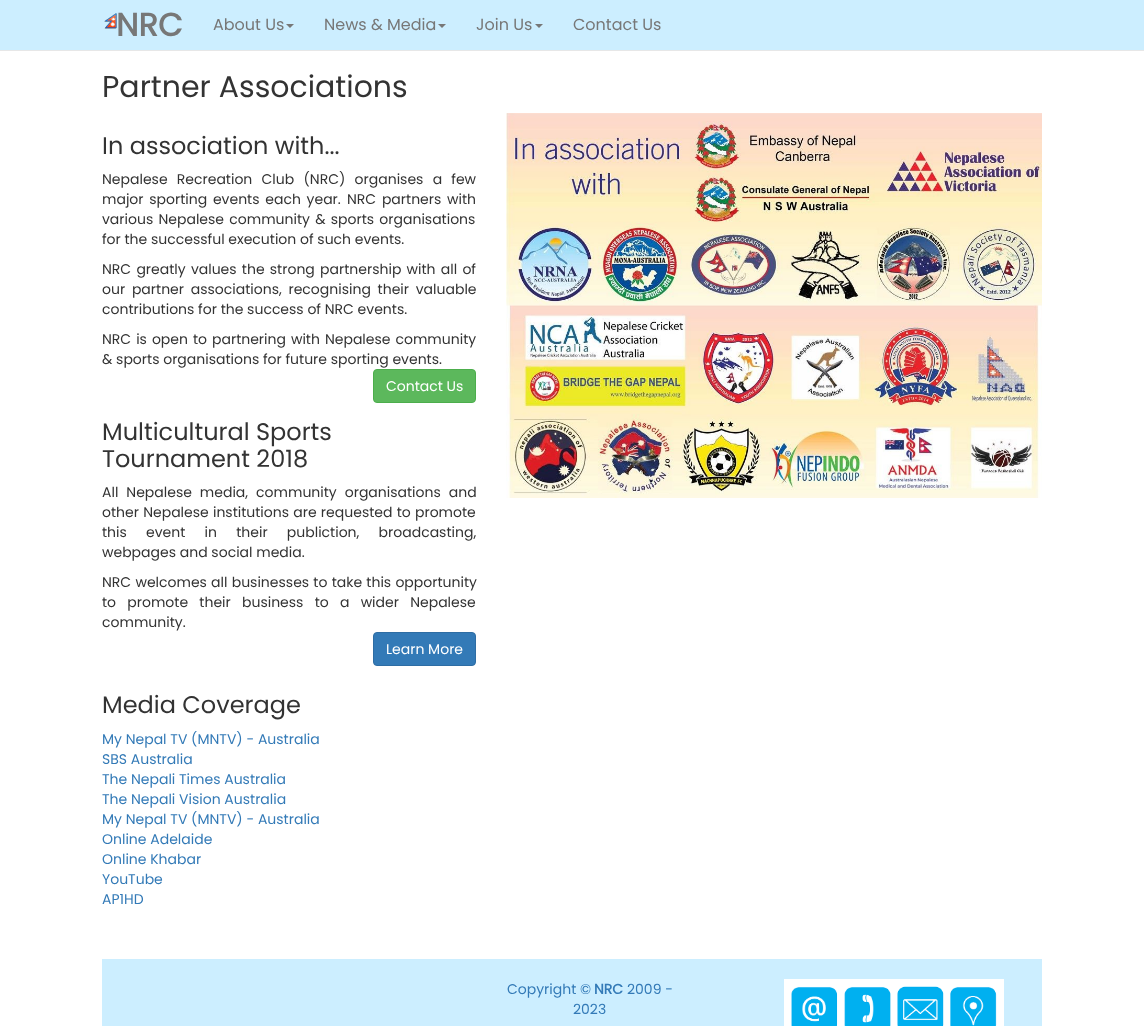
<!DOCTYPE html>
<meta charset="utf-8">
<style>body { margin: 0 } canvas { display: block }</style>
<canvas id="canvas" width="1144" height="1026"></canvas>
<img id="img1" src="img_01.png" hidden>
<img id="img2" src="img_02.png" hidden>
<img id="img3" src="img_03.png" hidden>
<script>
window.onload = function () {
	const canvas = document.getElementById("canvas");
	const ctx = canvas.getContext("2d");
	ctx.miterLimit = 4;
	ctx.fontKerning = "normal";
	function txt(s, x, y) {
		ctx.fillText(s, x, y);
	}
	function fill(x, y, w, h) {
		ctx.fillRect(x, y, w, h);
	}
	function img(id, x, y, w, h) {
		ctx.drawImage(document.getElementById(id), x, y, w, h);
	}

	ctx.fillStyle = "#FFFFFF";
	fill(0, 0, 1144, 1026);
	ctx.fillStyle = "#CCEEFF";
	fill(0, 0, 1144, 50);
	ctx.fillStyle = "#E7E7E7";
	fill(0, 50, 1144, 1);
	img("img1", 104, 13, 13, 16);
	ctx.fillStyle = "#777777";
	ctx.beginPath();
	ctx.moveTo(286, 24);
	ctx.lineTo(294, 24);
	ctx.lineTo(290, 28);
	ctx.closePath();
	ctx.fill();
	ctx.beginPath();
	ctx.moveTo(438, 24);
	ctx.lineTo(446, 24);
	ctx.lineTo(442, 28);
	ctx.closePath();
	ctx.fill();
	ctx.beginPath();
	ctx.moveTo(535, 24);
	ctx.lineTo(543, 24);
	ctx.lineTo(539, 28);
	ctx.closePath();
	ctx.fill();
	ctx.fillStyle = "#5CB85C";
	ctx.beginPath();
	ctx.roundRect(373.5, 369.5, 102, 33, 3.5);
	ctx.fill();
	ctx.strokeStyle = "#4CAE4C";
	ctx.stroke();
	ctx.fillStyle = "#337AB7";
	ctx.beginPath();
	ctx.roundRect(373.5, 632.5, 102, 33, 3.5);
	ctx.fill();
	ctx.strokeStyle = "#2E6DA4";
	ctx.stroke();
	img("img2", 506, 113, 536, 385);
	ctx.fillStyle = "#CCEEFF";
	fill(102, 959, 940, 67);
	img("img3", 784, 979, 220, 47);
	ctx.font = "bold 32px Poppins";
	ctx.fillStyle = "#777777";
	txt("NRC", 116, 36);
	ctx.font = "16px Poppins";
	txt("About Us", 213, 30);
	txt("News & Media", 324, 30);
	txt("Join Us", 476, 30);
	txt("Contact Us", 573, 30);
	ctx.font = "30px Poppins";
	ctx.fillStyle = "#333333";
	txt("Partner Associations", 102, 97);
	ctx.font = "24px Poppins";
	txt("In association with...", 102, 154);
	ctx.wordSpacing = "5.5px";
	ctx.font = "14px Poppins";
	txt("Nepalese Recreation Club (NRC) organises a few", 102, 184);
	ctx.wordSpacing = "2px";
	txt("major sporting events each year.", 102, 204);
	txt("NRC partners with", 347, 204);
	ctx.wordSpacing = "1.5px";
	txt("various Nepalese community & sports organisations", 102, 224);
	ctx.wordSpacing = "0px";
	txt("for the successful execution of such events.", 102, 244);
	ctx.wordSpacing = "1.5px";
	txt("NRC greatly values the strong partnership with all of", 102, 274);
	ctx.wordSpacing = "3px";
	txt("our partner associations, recognising their valuable", 102, 294);
	ctx.wordSpacing = "0px";
	txt("contributions for the success of NRC events.", 102, 314);
	ctx.wordSpacing = "1.25px";
	txt("NRC is open to partnering with Nepalese community", 102, 344);
	ctx.wordSpacing = "0px";
	txt("& sports organisations for future sporting events.", 102, 364);
	ctx.fillStyle = "#FFFFFF";
	txt("Contact Us", 386, 391);
	ctx.font = "24px Poppins";
	ctx.fillStyle = "#333333";
	txt("Multicultural Sports", 102, 440);
	txt("Tournament 2018", 102, 467);
	ctx.wordSpacing = "4.25px";
	ctx.font = "14px Poppins";
	txt("All Nepalese media, community organisations and", 102, 497);
	ctx.wordSpacing = "0.5px";
	txt("other Nepalese institutions are requested to promote", 102, 517);
	ctx.wordSpacing = "15.5px";
	txt("this event in their publiction, broadcasting,", 102, 537);
	ctx.wordSpacing = "0px";
	txt("webpages and social media.", 102, 557);
	ctx.wordSpacing = "0.5px";
	txt("NRC welcomes all businesses to take this opportunity", 102, 587);
	ctx.wordSpacing = "7.5px";
	txt("to promote their business to a wider Nepalese", 102, 607);
	ctx.wordSpacing = "0px";
	txt("community.", 102, 627);
	ctx.fillStyle = "#FFFFFF";
	txt("Learn More", 386, 654);
	ctx.font = "24px Poppins";
	ctx.fillStyle = "#333333";
	txt("Media Coverage", 102, 713);
	ctx.font = "14px Poppins";
	ctx.fillStyle = "#337AB7";
	txt("My Nepal TV (MNTV) - Australia", 102, 744);
	txt("SBS Australia", 102, 764);
	txt("The Nepali Times Australia", 102, 784);
	txt("The Nepali Vision Australia", 102, 804);
	txt("My Nepal TV (MNTV) - Australia", 102, 824);
	txt("Online Adelaide", 102, 844);
	txt("Online Khabar", 102, 864);
	txt("YouTube", 102, 884);
	txt("AP1HD", 102, 904);
	txt("Copyright ©", 507, 994);
	ctx.font = "bold 14px Poppins";
	txt("NRC", 594, 994);
	ctx.font = "14px Poppins";
	txt("2009 -", 627, 994);
	txt("2023", 573, 1014);
};
</script>
